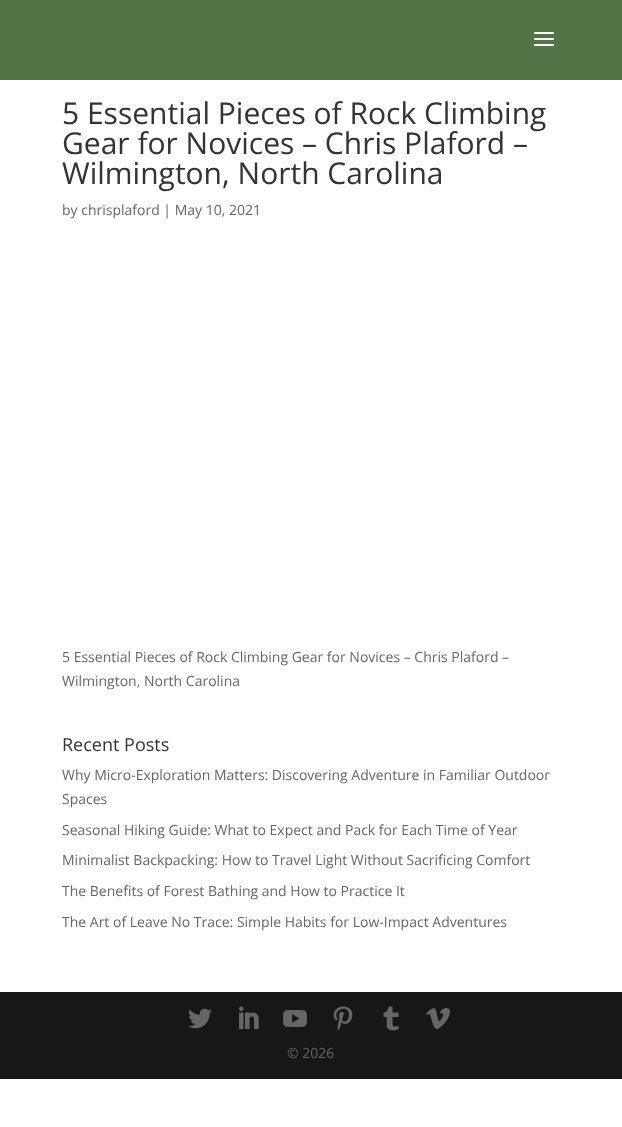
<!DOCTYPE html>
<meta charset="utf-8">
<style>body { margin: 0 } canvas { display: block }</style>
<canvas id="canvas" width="622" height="1127"></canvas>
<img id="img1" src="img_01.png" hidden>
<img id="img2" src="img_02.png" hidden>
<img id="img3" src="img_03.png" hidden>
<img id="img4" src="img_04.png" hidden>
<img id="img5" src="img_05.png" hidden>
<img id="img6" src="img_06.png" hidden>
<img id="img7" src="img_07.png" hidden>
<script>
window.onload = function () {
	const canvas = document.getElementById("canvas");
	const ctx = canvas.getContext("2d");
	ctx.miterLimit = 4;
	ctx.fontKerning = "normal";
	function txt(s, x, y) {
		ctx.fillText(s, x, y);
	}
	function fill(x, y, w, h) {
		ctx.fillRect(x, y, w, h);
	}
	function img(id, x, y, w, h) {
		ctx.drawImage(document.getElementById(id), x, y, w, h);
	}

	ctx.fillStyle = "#FFFFFF";
	fill(0, 0, 622, 1127);
	ctx.fillStyle = "#527548";
	fill(0, 0, 622, 80);
	img("img1", 534, 32, 20, 14);
	ctx.fillStyle = "#171717";
	fill(0, 992, 622, 87);
	img("img2", 188, 1008, 24, 21);
	img("img3", 239, 1006, 20, 23);
	img("img4", 283, 1010, 24, 17);
	img("img5", 333, 1006, 20, 25);
	img("img6", 383, 1006, 16, 25);
	img("img7", 426, 1008, 24, 21);
	ctx.font = "30px Open Sans";
	ctx.fillStyle = "#333333";
	txt("5 Essential Pieces of Rock Climbing", 62, 124);
	txt("Gear for Novices – Chris Plaford –", 62, 154);
	txt("Wilmington, North Carolina", 62, 184);
	ctx.font = "14px Open Sans";
	ctx.fillStyle = "#666666";
	txt("by chrisplaford | May 10, 2021", 62, 215);
	txt("5 Essential Pieces of Rock Climbing Gear for Novices – Chris Plaford –", 62, 662);
	txt("Wilmington, North Carolina", 62, 686);
	ctx.font = "18px Open Sans";
	ctx.fillStyle = "#333333";
	txt("Recent Posts", 62, 751);
	ctx.font = "14px Open Sans";
	ctx.fillStyle = "#666666";
	txt("Why Micro-Exploration Matters: Discovering Adventure in Familiar Outdoor", 62, 780);
	txt("Spaces", 62, 804);
	txt("Seasonal Hiking Guide: What to Expect and Pack for Each Time of Year", 62, 835);
	txt("Minimalist Backpacking: How to Travel Light Without Sacrificing Comfort", 62, 865);
	txt("The Benefits of Forest Bathing and How to Practice It", 62, 896);
	txt("The Art of Leave No Trace: Simple Habits for Low-Impact Adventures", 62, 927);
	txt("© 2026", 287, 1058);
};
</script>
